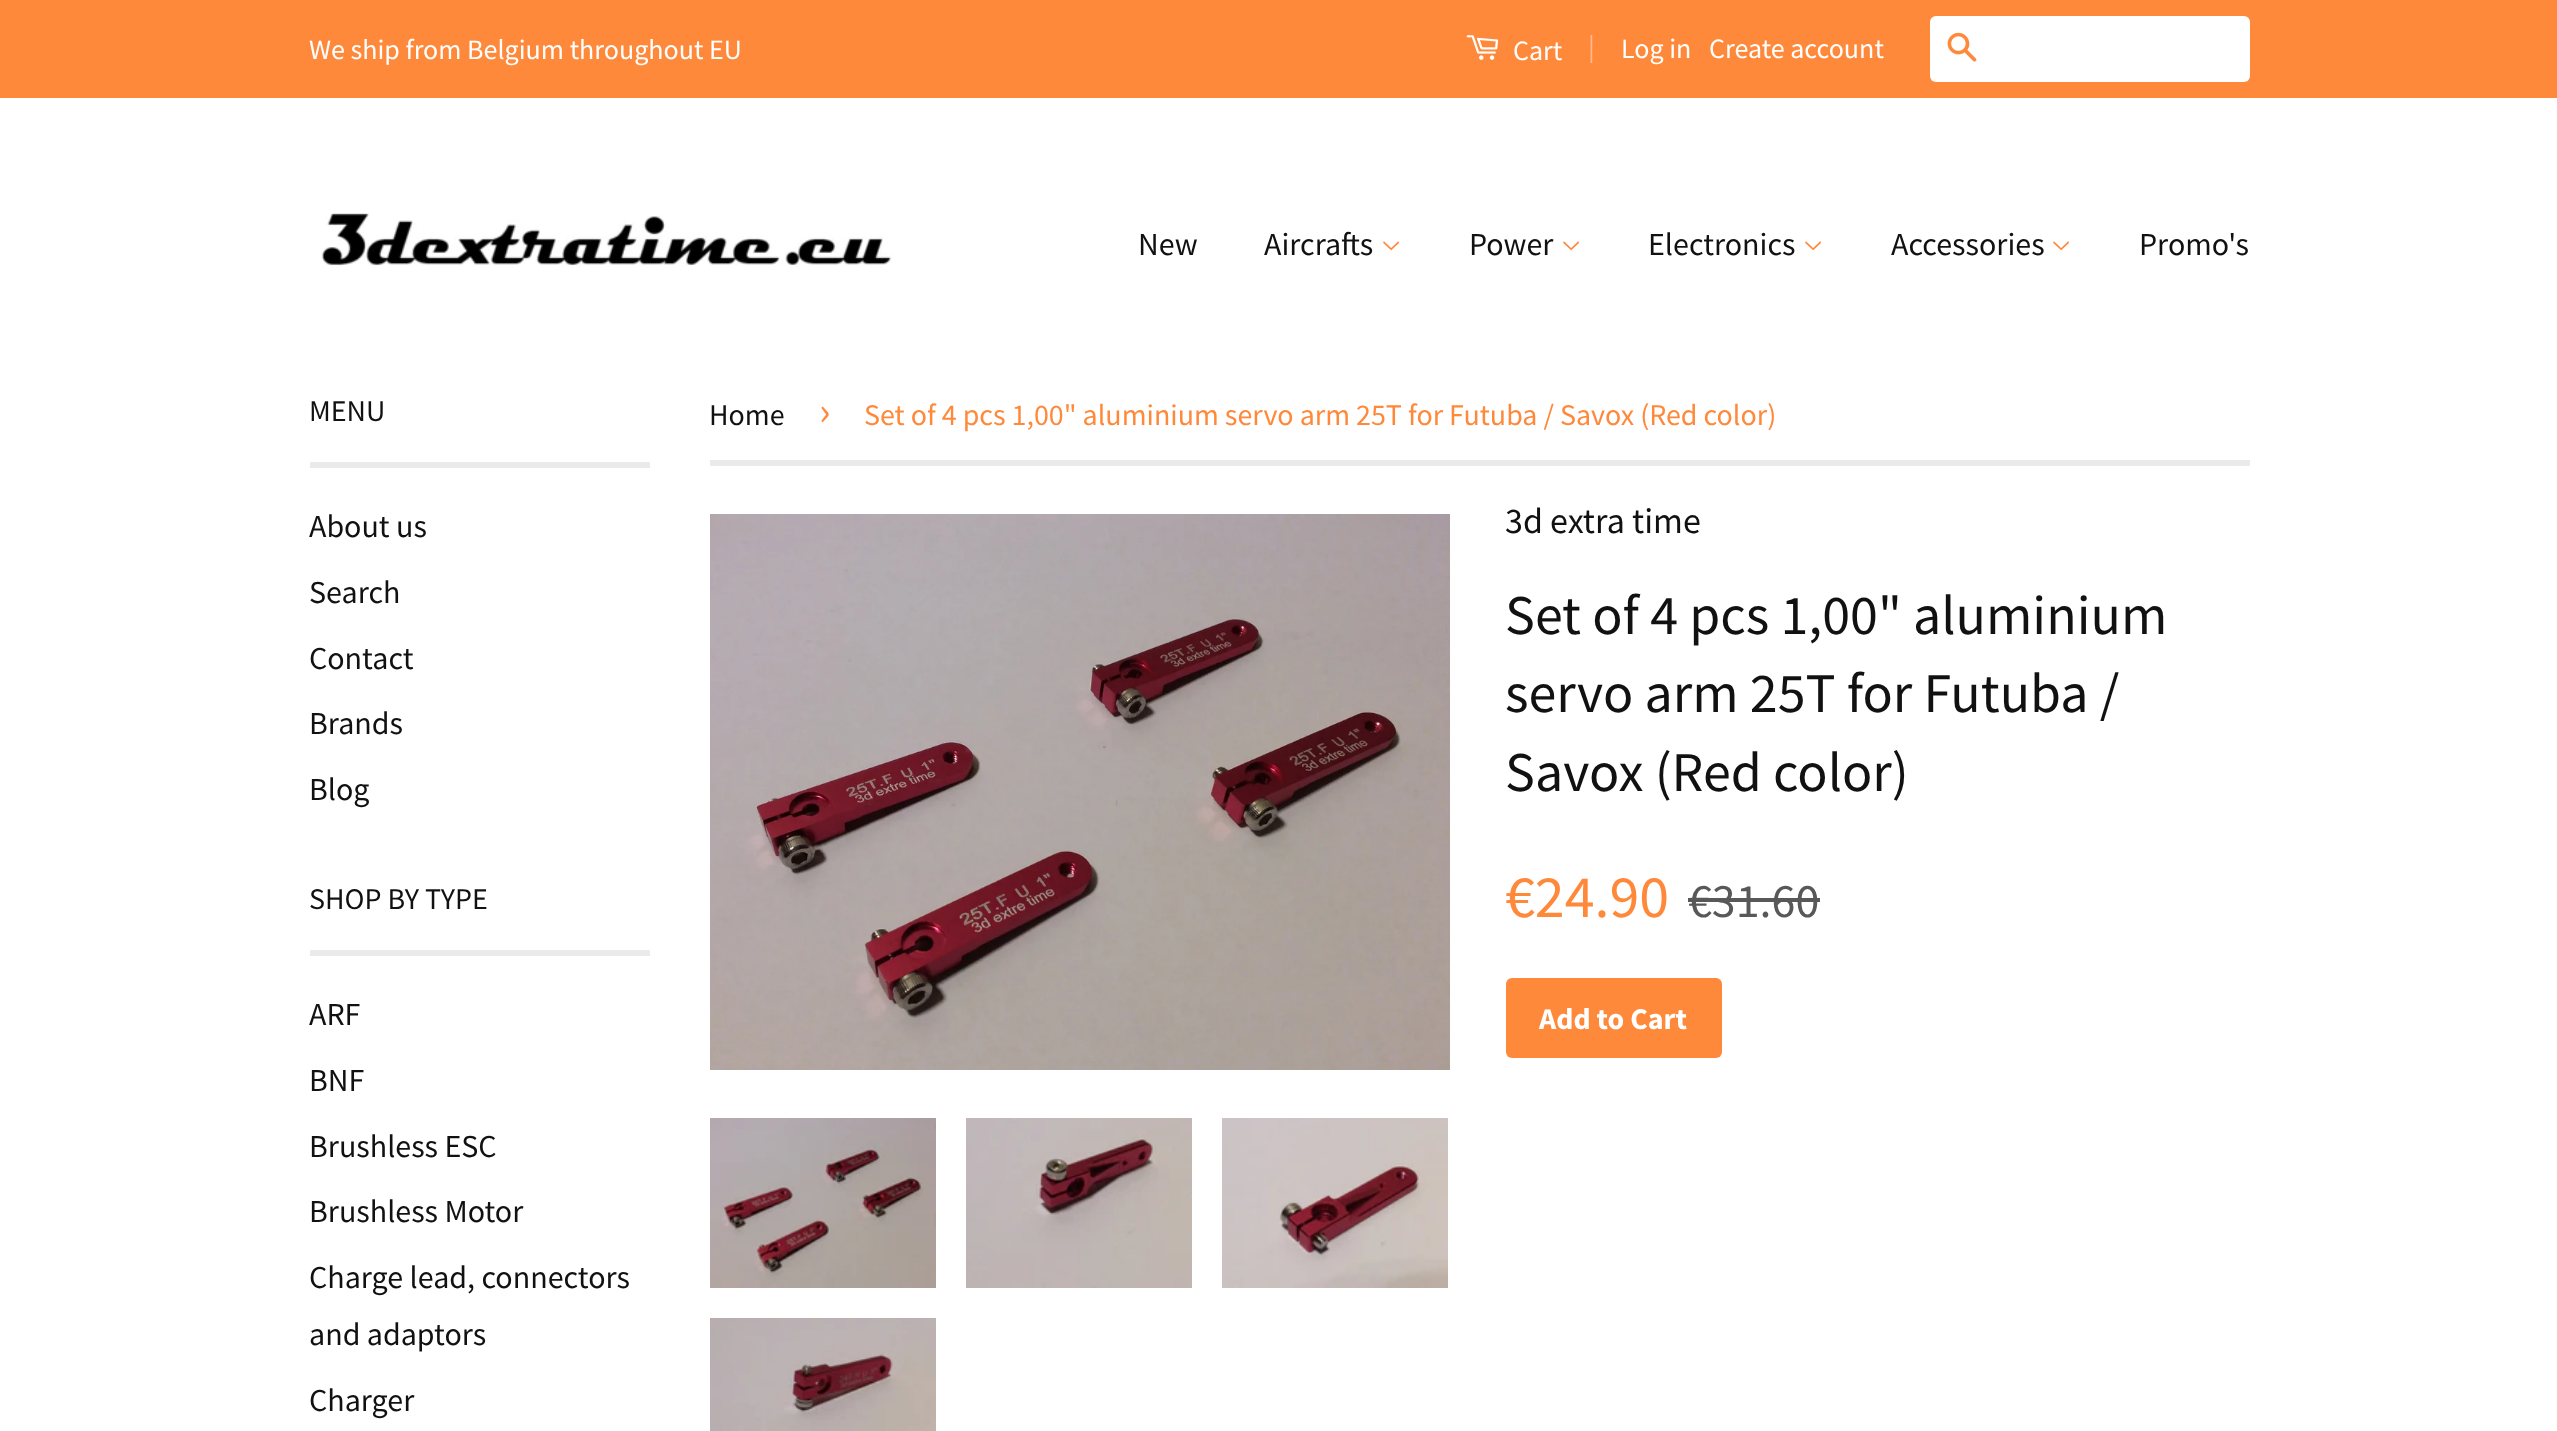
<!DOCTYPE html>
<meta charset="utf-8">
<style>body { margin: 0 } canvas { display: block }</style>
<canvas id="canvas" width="2557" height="1431"></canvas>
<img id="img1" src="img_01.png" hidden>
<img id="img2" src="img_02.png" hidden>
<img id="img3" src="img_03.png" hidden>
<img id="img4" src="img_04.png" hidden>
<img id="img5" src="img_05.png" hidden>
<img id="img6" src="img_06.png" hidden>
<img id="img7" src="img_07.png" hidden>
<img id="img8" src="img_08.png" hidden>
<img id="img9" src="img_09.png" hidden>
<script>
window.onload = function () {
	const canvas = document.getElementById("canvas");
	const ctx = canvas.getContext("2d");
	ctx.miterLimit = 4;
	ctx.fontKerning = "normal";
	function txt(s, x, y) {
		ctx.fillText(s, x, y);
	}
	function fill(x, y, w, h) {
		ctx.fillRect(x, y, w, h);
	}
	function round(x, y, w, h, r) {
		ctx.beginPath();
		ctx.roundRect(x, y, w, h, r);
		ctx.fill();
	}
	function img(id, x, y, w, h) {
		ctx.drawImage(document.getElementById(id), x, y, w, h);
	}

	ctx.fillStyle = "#FFFFFF";
	fill(0, 0, 2557, 1431);
	ctx.fillStyle = "#FF893B";
	fill(0, 0, 2557, 98);
	img("img1", 1466, 35, 33, 25);
	ctx.fillStyle = "#FFFFFF";
	round(1930, 16, 320, 66, 6);
	img("img2", 1947, 32, 30, 30);
	img("img3", 321, 213, 571, 53);
	img("img4", 1383, 241, 16, 10);
	img("img4", 1563, 241, 16, 10);
	img("img4", 1805, 241, 16, 10);
	img("img4", 2053, 241, 16, 10);
	ctx.fillStyle = "#EAEAEA";
	fill(310, 462, 340, 6);
	fill(310, 950, 340, 6);
	fill(710, 460, 1540, 6);
	img("img5", 710, 514, 740, 556);
	ctx.fillStyle = "#585858";
	fill(1688, 898, 132, 4);
	ctx.fillStyle = "#FF893B";
	round(1506, 978, 216, 80, 6);
	img("img6", 710, 1118, 226, 170);
	img("img7", 966, 1118, 226, 170);
	img("img8", 1222, 1118, 226, 170);
	img("img9", 710, 1318, 226, 113);
	ctx.font = "28px Source Sans Pro";
	ctx.fillStyle = "#FFFFFF";
	txt("We ship from Belgium throughout EU", 309, 59);
	txt("Cart", 1513, 60);
	ctx.fillStyle = "#FFB889";
	txt("|", 1588, 56);
	ctx.fillStyle = "#FFFFFF";
	txt("Log in", 1621, 58);
	txt("Create account", 1709, 58);
	ctx.font = "32px Source Sans Pro";
	ctx.fillStyle = "#111111";
	txt("New", 1138, 255);
	txt("Aircrafts", 1264, 255);
	txt("Power", 1469, 255);
	txt("Electronics", 1648, 255);
	txt("Accessories", 1891, 255);
	txt("Promo's", 2139, 255);
	ctx.font = "30px Source Sans Pro";
	txt("MENU", 309, 421);
	ctx.font = "32px Source Sans Pro";
	txt("About us", 309, 537);
	txt("Search", 309, 603);
	txt("Contact", 309, 669);
	txt("Brands", 309, 734);
	txt("Blog", 309, 800);
	ctx.font = "30px Source Sans Pro";
	txt("SHOP BY TYPE", 309, 909);
	ctx.font = "32px Source Sans Pro";
	txt("ARF", 309, 1025);
	txt("BNF", 309, 1091);
	txt("Brushless ESC", 309, 1157);
	txt("Brushless Motor", 309, 1222);
	txt("Charge lead, connectors", 309, 1288);
	txt("and adaptors", 309, 1345);
	txt("Charger", 309, 1411);
	ctx.font = "30px Source Sans Pro";
	txt("Home", 709, 425);
	ctx.font = "42px Source Sans Pro";
	ctx.fillStyle = "#FF893B";
	txt("›", 819, 425);
	ctx.font = "30px Source Sans Pro";
	txt("Set of 4 pcs 1,00\" aluminium servo arm 25T for Futuba / Savox (Red color)", 864, 425);
	ctx.font = "36px Source Sans Pro";
	ctx.fillStyle = "#111111";
	txt("3d extra time", 1505, 533);
	ctx.font = "56px Source Sans Pro";
	txt("Set of 4 pcs 1,00\" aluminium", 1505, 634);
	txt("servo arm 25T for Futuba /", 1505, 712);
	txt("Savox (Red color)", 1505, 791);
	ctx.font = "60px Source Sans Pro";
	ctx.fillStyle = "#FF893B";
	txt("€24.90", 1505, 917);
	ctx.font = "48px Source Sans Pro";
	ctx.fillStyle = "#585858";
	txt("€31.60", 1688, 917);
	ctx.font = "bold 30px Source Sans Pro";
	ctx.fillStyle = "#FFFFFF";
	txt("Add to Cart", 1539, 1029);
};
</script>
